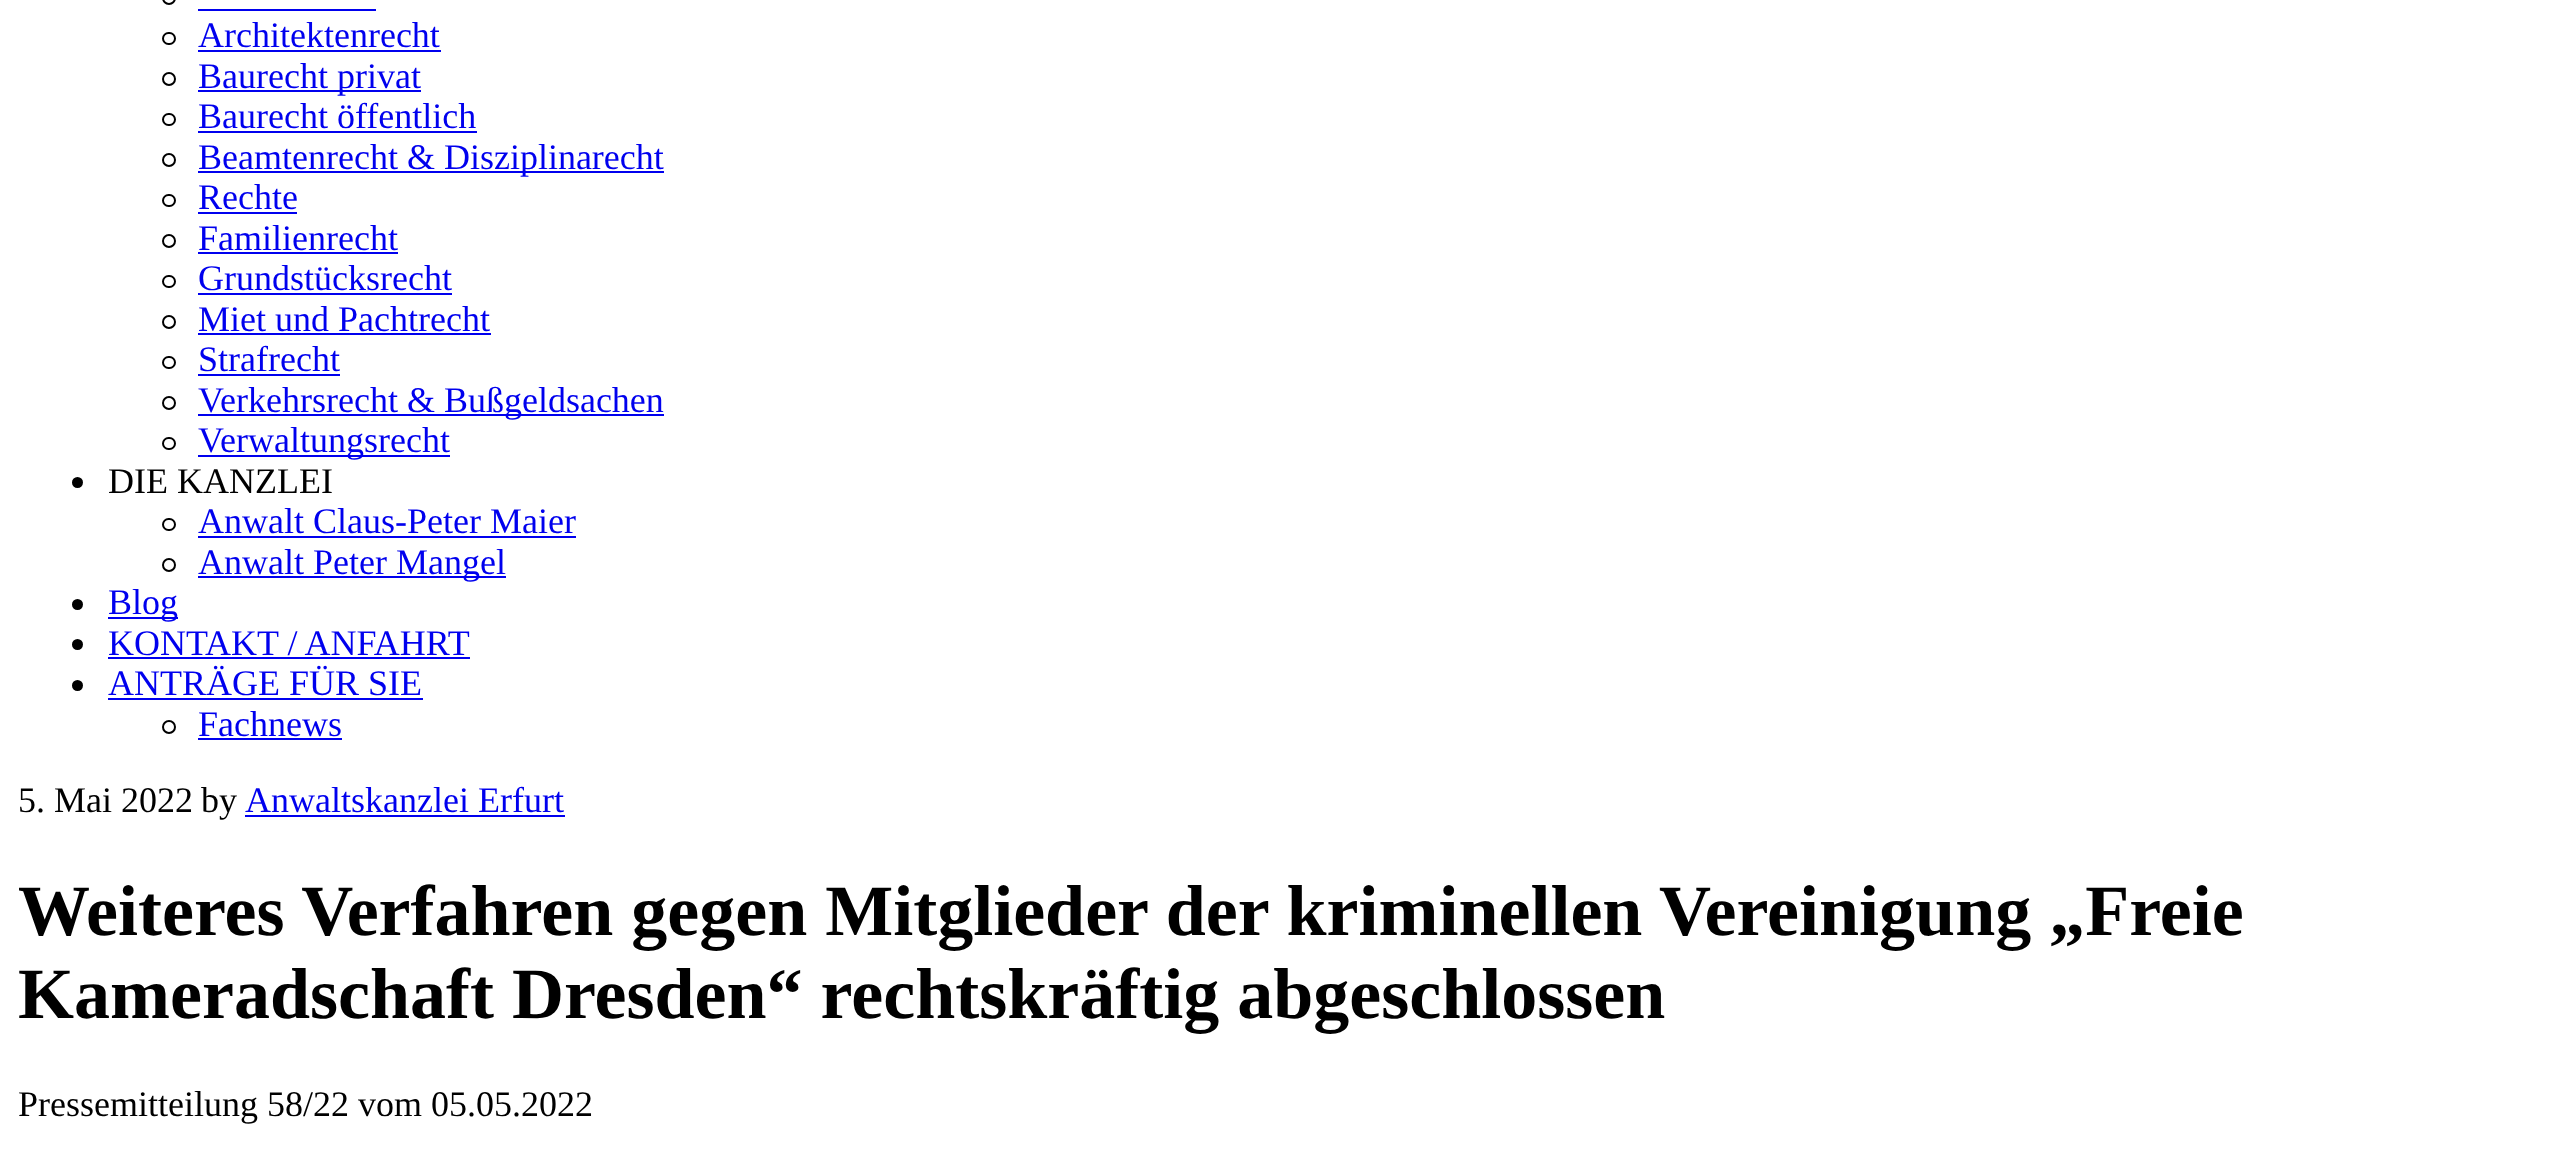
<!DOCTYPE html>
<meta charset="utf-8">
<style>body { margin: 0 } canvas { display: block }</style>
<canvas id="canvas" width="2549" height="1159"></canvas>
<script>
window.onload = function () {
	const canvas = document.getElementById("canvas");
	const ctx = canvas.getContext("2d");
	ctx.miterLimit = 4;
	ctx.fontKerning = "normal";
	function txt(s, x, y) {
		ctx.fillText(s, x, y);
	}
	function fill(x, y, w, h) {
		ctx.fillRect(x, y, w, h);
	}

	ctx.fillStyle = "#FFFFFF";
	fill(0, 0, 2549, 1159);
	ctx.beginPath();
	ctx.arc(169, -2, 6, 0, Math.PI * 2);
	ctx.strokeStyle = "#000000";
	ctx.lineWidth = 2;
	ctx.stroke();
	ctx.fillStyle = "#0000EE";
	fill(198, 9, 178, 2);
	ctx.beginPath();
	ctx.roundRect(163, 33, 12, 11, 5.5);
	ctx.stroke();
	fill(198, 50, 243, 2);
	ctx.beginPath();
	ctx.arc(169, 79, 6, 0, Math.PI * 2);
	ctx.stroke();
	fill(198, 90, 223, 2);
	ctx.beginPath();
	ctx.roundRect(163, 114, 12, 11, 5.5);
	ctx.stroke();
	fill(198, 131, 279, 2);
	ctx.beginPath();
	ctx.arc(169, 160, 6, 0, Math.PI * 2);
	ctx.stroke();
	fill(198, 171, 466, 2);
	ctx.beginPath();
	ctx.roundRect(163, 195, 12, 11, 5.5);
	ctx.stroke();
	fill(198, 212, 99, 2);
	ctx.beginPath();
	ctx.arc(169, 241, 6, 0, Math.PI * 2);
	ctx.stroke();
	fill(198, 252, 200, 2);
	ctx.beginPath();
	ctx.roundRect(163, 276, 12, 11, 5.5);
	ctx.stroke();
	fill(198, 293, 254, 2);
	ctx.beginPath();
	ctx.arc(169, 322, 6, 0, Math.PI * 2);
	ctx.stroke();
	fill(198, 333, 293, 2);
	ctx.beginPath();
	ctx.roundRect(163, 357, 12, 11, 5.5);
	ctx.stroke();
	fill(198, 374, 142, 2);
	ctx.beginPath();
	ctx.arc(169, 403, 6, 0, Math.PI * 2);
	ctx.stroke();
	fill(198, 414, 466, 2);
	ctx.beginPath();
	ctx.roundRect(163, 438, 12, 11, 5.5);
	ctx.stroke();
	fill(198, 455, 252, 2);
	ctx.fillStyle = "#000000";
	ctx.beginPath();
	ctx.arc(77.5, 482.5, 5.5, 0, Math.PI * 2);
	ctx.fill();
	ctx.beginPath();
	ctx.roundRect(163, 519, 12, 11, 5.5);
	ctx.stroke();
	ctx.fillStyle = "#0000EE";
	fill(198, 536, 378, 2);
	ctx.beginPath();
	ctx.arc(169, 565, 6, 0, Math.PI * 2);
	ctx.stroke();
	fill(198, 576, 308, 2);
	ctx.fillStyle = "#000000";
	ctx.beginPath();
	ctx.arc(77.5, 604.5, 5.5, 0, Math.PI * 2);
	ctx.fill();
	ctx.fillStyle = "#0000EE";
	fill(108, 617, 70, 2);
	ctx.fillStyle = "#000000";
	ctx.beginPath();
	ctx.arc(77.5, 644.5, 5.5, 0, Math.PI * 2);
	ctx.fill();
	ctx.fillStyle = "#0000EE";
	fill(108, 657, 362, 2);
	ctx.fillStyle = "#000000";
	ctx.beginPath();
	ctx.arc(77.5, 685.5, 5.5, 0, Math.PI * 2);
	ctx.fill();
	ctx.fillStyle = "#0000EE";
	fill(108, 698, 315, 2);
	ctx.beginPath();
	ctx.arc(169, 727, 6, 0, Math.PI * 2);
	ctx.stroke();
	fill(198, 738, 144, 2);
	fill(245, 815, 320, 2);
	ctx.font = "36px Liberation Serif";
	txt("Architektenrecht", 198, 47);
	txt("Baurecht privat", 198, 88);
	txt("Baurecht öffentlich", 198, 128);
	txt("Beamtenrecht & Disziplinarecht", 198, 169);
	txt("Rechte", 198, 209);
	txt("Familienrecht", 198, 250);
	txt("Grundstücksrecht", 198, 290);
	txt("Miet und Pachtrecht", 198, 331);
	txt("Strafrecht", 198, 371);
	txt("Verkehrsrecht & Bußgeldsachen", 198, 412);
	txt("Verwaltungsrecht", 198, 452);
	ctx.fillStyle = "#000000";
	txt("DIE KANZLEI", 108, 493);
	ctx.fillStyle = "#0000EE";
	txt("Anwalt Claus-Peter Maier", 198, 533);
	txt("Anwalt Peter Mangel", 198, 574);
	txt("Blog", 108, 614);
	txt("KONTAKT / ANFAHRT", 108, 655);
	txt("ANTRÄGE FÜR SIE", 108, 695);
	txt("Fachnews", 198, 736);
	ctx.fillStyle = "#000000";
	txt("5. Mai 2022", 18, 812);
	txt("by", 201, 812);
	ctx.fillStyle = "#0000EE";
	txt("Anwaltskanzlei Erfurt", 245, 812);
	ctx.font = "bold 72px Liberation Serif";
	ctx.fillStyle = "#000000";
	txt("Weiteres Verfahren gegen Mitglieder der kriminellen Vereinigung „Freie", 18, 935);
	txt("Kameradschaft Dresden“ rechtskräftig abgeschlossen", 18, 1018);
	ctx.font = "36px Liberation Serif";
	txt("Pressemitteilung 58/22 vom 05.05.2022", 18, 1116);
};
</script>
